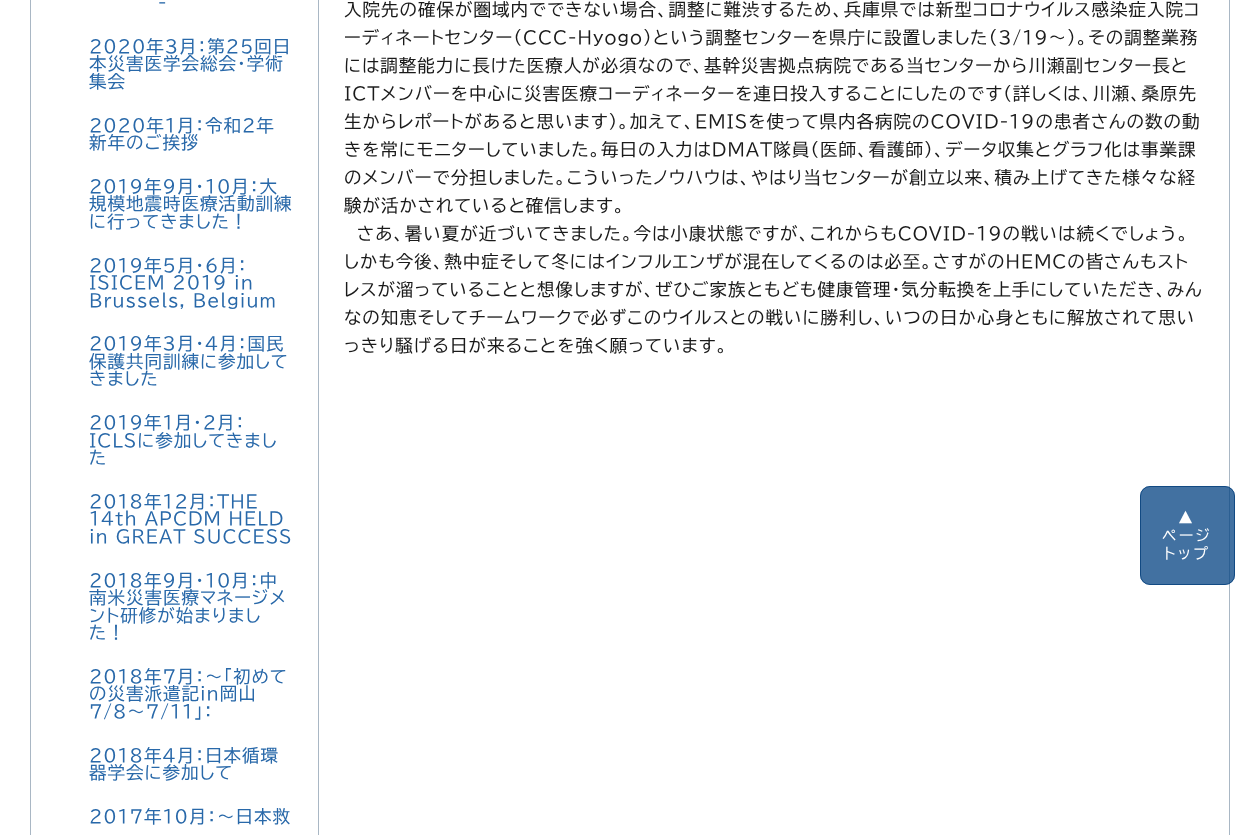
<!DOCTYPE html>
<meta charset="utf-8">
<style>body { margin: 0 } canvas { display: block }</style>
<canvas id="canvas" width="1260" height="835"></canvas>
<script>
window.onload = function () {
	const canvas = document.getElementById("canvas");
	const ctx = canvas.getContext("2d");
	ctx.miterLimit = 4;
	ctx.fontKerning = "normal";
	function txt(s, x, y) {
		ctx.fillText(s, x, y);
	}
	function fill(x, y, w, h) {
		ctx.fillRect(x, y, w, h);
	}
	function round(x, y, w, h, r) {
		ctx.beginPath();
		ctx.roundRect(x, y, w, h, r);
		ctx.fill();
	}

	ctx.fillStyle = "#FFFFFF";
	fill(0, 0, 1260, 835);
	ctx.fillStyle = "#A9B7C4";
	fill(30, 0, 1, 835);
	fill(1229, 0, 1, 835);
	fill(318, 0, 1, 835);
	ctx.fillStyle = "rgba(3, 66, 130, 0.75)";
	round(1140, 486, 95, 99, 10);
	ctx.beginPath();
	ctx.roundRect(1140.5, 486.5, 94, 98, 9.5);
	ctx.strokeStyle = "rgba(3, 62, 122, 0.75)";
	ctx.stroke();
	ctx.letterSpacing = "1px";
	ctx.font = "17.5px BIZ UDPGothic";
	ctx.fillStyle = "#2868A9";
	txt("-", 158, 9);
	txt("2020年3月：第25回日", 89, 53);
	txt("本災害医学会総会・学術", 89, 70);
	txt("集会", 89, 88);
	txt("2020年1月：令和2年", 89, 132);
	txt("新年のご挨拶", 89, 149);
	txt("2019年9月・10月：大", 89, 193);
	txt("規模地震時医療活動訓練", 89, 210);
	txt("に行ってきました！", 89, 228);
	txt("2019年5月・6月：", 89, 272);
	txt("ISICEM 2019 in", 89, 289);
	txt("Brussels, Belgium", 89, 307);
	txt("2019年3月・4月：国民", 89, 350);
	txt("保護共同訓練に参加して", 89, 368);
	txt("きました", 89, 385);
	txt("2019年1月・2月：", 89, 429);
	txt("ICLSに参加してきまし", 89, 447);
	txt("た", 89, 464);
	txt("2018年12月：THE", 89, 508);
	txt("14th APCDM HELD", 89, 525);
	txt("in GREAT SUCCESS", 89, 543);
	txt("2018年9月・10月：中", 89, 587);
	txt("南米災害医療マネージメ", 89, 604);
	txt("ント研修が始まりまし", 89, 622);
	txt("た！", 89, 639);
	txt("2018年7月：〜「初めて", 89, 683);
	txt("の災害派遣記in岡山", 89, 700);
	txt("7/8～7/11」：", 89, 718);
	txt("2018年4月：日本循環", 89, 762);
	txt("器学会に参加して", 89, 779);
	txt("2017年10月：～日本救", 89, 823);
	ctx.fillStyle = "#1A1A1A";
	txt("入院先の確保が圏域内でできない場合、調整に難渋するため、兵庫県では新型コロナウイルス感染症入院コ", 344, 16);
	txt("ーディネートセンター（CCC-Hyogo）という調整センターを県庁に設置しました（3/19〜）。その調整業務", 344, 44);
	txt("には調整能力に長けた医療人が必須なので、基幹災害拠点病院である当センターから川瀬副センター長と", 344, 72);
	txt("ICTメンバーを中心に災害医療コーディネーターを連日投入することにしたのです（詳しくは、川瀬、桑原先", 344, 100);
	txt("生からレポートがあると思います）。加えて、EMISを使って県内各病院のCOVID-19の患者さんの数の動", 344, 128);
	txt("きを常にモニターしていました。毎日の入力はDMAT隊員（医師、看護師）、データ収集とグラフ化は事業課", 344, 156);
	txt("のメンバーで分担しました。こういったノウハウは、やはり当センターが創立以来、積み上げてきた様々な経", 344, 184);
	txt("験が活かされていると確信します。", 344, 212);
	txt("さあ、暑い夏が近づいてきました。今は小康状態ですが、これからもCOVID-19の戦いは続くでしょう。", 357, 240);
	txt("しかも今後、熱中症そして冬にはインフルエンザが混在してくるのは必至。さすがのHEMCの皆さんもスト", 344, 268);
	txt("レスが溜っていることと想像しますが、ぜひご家族ともども健康管理・気分転換を上手にしていただき、みん", 344, 296);
	txt("なの知恵そしてチームワークで必ずこのウイルスとの戦いに勝利し、いつの日か心身ともに解放されて思い", 344, 324);
	txt("っきり騒げる日が来ることを強く願っています。", 344, 352);
	ctx.letterSpacing = "2.5px";
	ctx.font = "15px BIZ UDPGothic";
	ctx.fillStyle = "#FFFFFF";
	txt("▲", 1178, 523);
	txt("ページ", 1162, 541);
	txt("トップ", 1164, 559);
};
</script>
